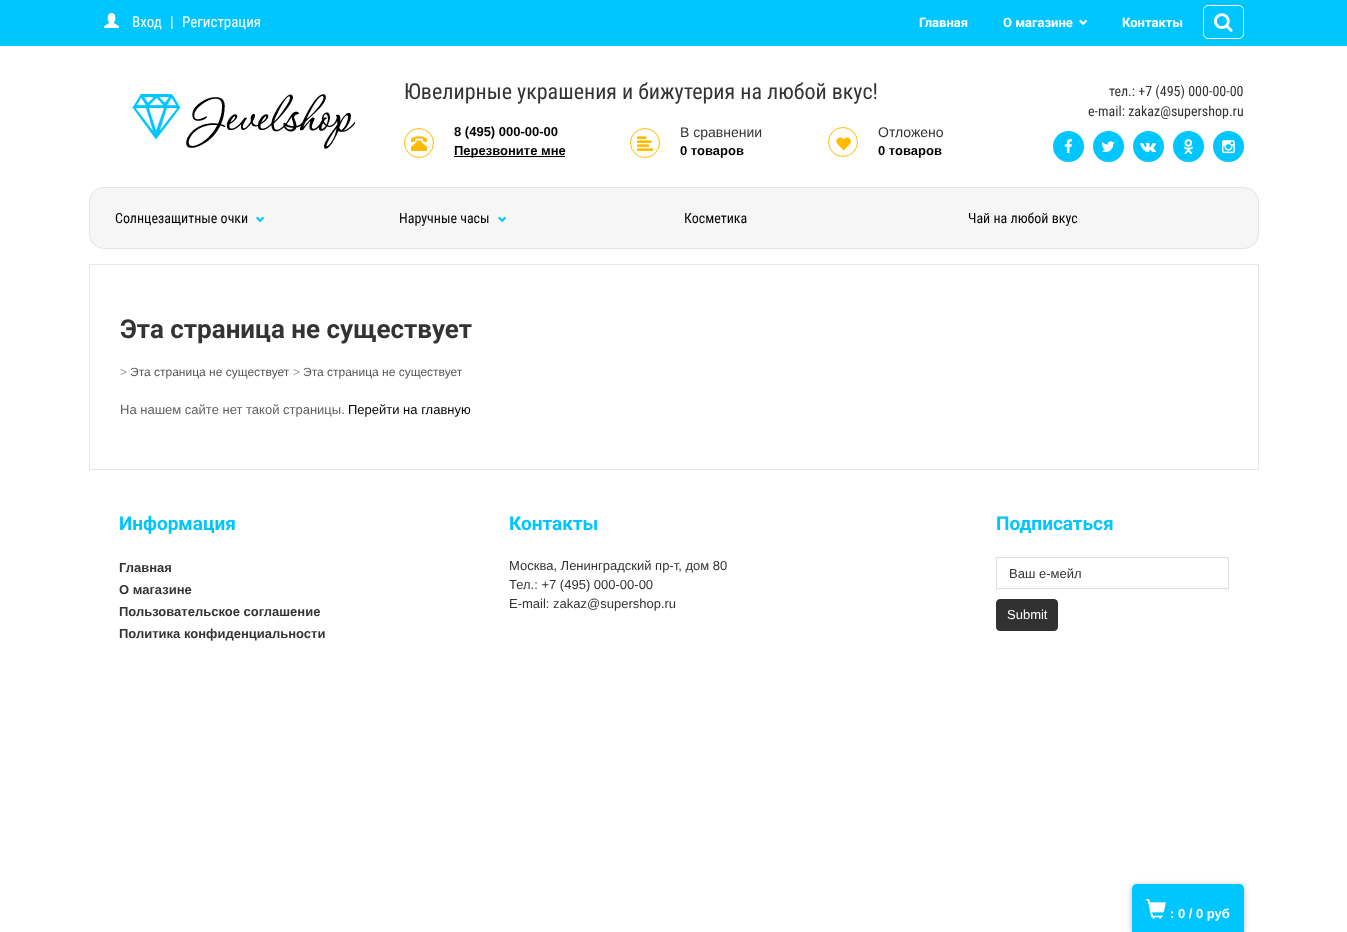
<!DOCTYPE html>
<meta charset="utf-8">
<style>body { margin: 0 } canvas { display: block }</style>
<canvas id="canvas" width="1347" height="932"></canvas>
<img id="img1" src="img_01.png" hidden>
<img id="img2" src="img_02.png" hidden>
<img id="img3" src="img_03.png" hidden>
<img id="img4" src="img_04.png" hidden>
<img id="img5" src="img_05.png" hidden>
<img id="img6" src="img_06.png" hidden>
<img id="img7" src="img_07.png" hidden>
<img id="img8" src="img_08.png" hidden>
<img id="img9" src="img_09.png" hidden>
<img id="img10" src="img_10.png" hidden>
<img id="img11" src="img_11.png" hidden>
<img id="img12" src="img_12.png" hidden>
<img id="img13" src="img_13.png" hidden>
<img id="img14" src="img_14.png" hidden>
<script>
window.onload = function () {
	const canvas = document.getElementById("canvas");
	const ctx = canvas.getContext("2d");
	ctx.miterLimit = 4;
	ctx.fontKerning = "normal";
	function txt(s, x, y) {
		ctx.fillText(s, x, y);
	}
	function fill(x, y, w, h) {
		ctx.fillRect(x, y, w, h);
	}
	function img(id, x, y, w, h) {
		ctx.drawImage(document.getElementById(id), x, y, w, h);
	}

	ctx.fillStyle = "#FFFFFF";
	fill(0, 0, 1347, 932);
	ctx.fillStyle = "#00C6FF";
	fill(0, 0, 1347, 46);
	img("img1", 104, 13, 15, 15);
	img("img2", 1079, 19, 9, 7);
	ctx.beginPath();
	ctx.roundRect(1203.5, 5.5, 40, 33, 4.5);
	ctx.strokeStyle = "#FFFFFF";
	ctx.stroke();
	img("img3", 1214, 13, 19, 19);
	img("img4", 131, 94, 225, 55);
	ctx.beginPath();
	ctx.arc(419, 143, 14.5, 0, Math.PI * 2);
	ctx.strokeStyle = "#FFBB00";
	ctx.stroke();
	img("img5", 411, 136, 16, 15);
	ctx.fillStyle = "#000000";
	fill(454, 156, 111, 1);
	ctx.beginPath();
	ctx.arc(645, 143, 14.5, 0, Math.PI * 2);
	ctx.stroke();
	img("img6", 637, 136, 16, 15);
	ctx.beginPath();
	ctx.arc(843, 142, 14.5, 0, Math.PI * 2);
	ctx.stroke();
	img("img7", 836, 137, 15, 14);
	ctx.fillStyle = "#00C6FF";
	ctx.beginPath();
	ctx.arc(1068.5, 146.5, 15.5, 0, Math.PI * 2);
	ctx.fill();
	img("img8", 1064, 139, 9, 15);
	ctx.beginPath();
	ctx.arc(1108.5, 146.5, 15.5, 0, Math.PI * 2);
	ctx.fill();
	img("img9", 1101, 141, 14, 11);
	ctx.beginPath();
	ctx.arc(1148.5, 146.5, 15.5, 0, Math.PI * 2);
	ctx.fill();
	img("img10", 1140, 142, 16, 10);
	ctx.beginPath();
	ctx.arc(1188.5, 146.5, 15.5, 0, Math.PI * 2);
	ctx.fill();
	img("img11", 1183, 139, 10, 16);
	ctx.beginPath();
	ctx.arc(1228.5, 146.5, 15.5, 0, Math.PI * 2);
	ctx.fill();
	img("img12", 1222, 140, 13, 14);
	ctx.fillStyle = "#F6F6F6";
	ctx.beginPath();
	ctx.roundRect(89.5, 187.5, 1169, 61, 14.5);
	ctx.fill();
	ctx.strokeStyle = "#E4E4E4";
	ctx.stroke();
	img("img13", 256, 216, 9, 7);
	img("img13", 498, 216, 9, 7);
	ctx.strokeStyle = "#E6E6E6";
	ctx.strokeRect(89.5, 264.5, 1169, 205);
	ctx.strokeStyle = "#DDDDDD";
	ctx.strokeRect(996.5, 557.5, 232, 31);
	ctx.fillStyle = "#313131";
	ctx.beginPath();
	ctx.roundRect(996.5, 599.5, 61, 31, 3.5);
	ctx.fill();
	ctx.strokeStyle = "#313131";
	ctx.stroke();
	ctx.fillStyle = "rgba(0, 0, 0, 0.2)";
	ctx.filter = "blur(2.5px)";
	ctx.beginPath();
	ctx.roundRect(1131, 884, 114, 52, 6);
	ctx.fill();
	ctx.filter = "none";
	ctx.fillStyle = "#00C6FF";
	ctx.beginPath();
	ctx.moveTo(1137, 884);
	ctx.lineTo(1239, 884);
	ctx.bezierCurveTo(1242, 884, 1244, 886, 1244, 889);
	ctx.lineTo(1244, 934);
	ctx.lineTo(1132, 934);
	ctx.lineTo(1132, 889);
	ctx.bezierCurveTo(1132, 886, 1134, 884, 1137, 884);
	ctx.closePath();
	ctx.fill();
	img("img14", 1146, 899, 20, 20);
	ctx.font = "15px Roboto Condensed";
	ctx.fillStyle = "#FFFFFF";
	txt("Вход", 132, 27);
	txt("|", 170, 27);
	txt("Регистрация", 182, 27);
	ctx.font = "bold 13px Roboto";
	txt("Главная", 919, 27);
	txt("О магазине", 1003, 27);
	txt("Контакты", 1122, 27);
	ctx.font = "22px Roboto Condensed";
	ctx.fillStyle = "#333333";
	txt("Ювелирные украшения и бижутерия на любой вкус!", 404, 99);
	ctx.font = "bold 13px Liberation Sans";
	ctx.fillStyle = "#000000";
	txt("8 (495) 000-00-00", 454, 136);
	txt("Перезвоните мне", 454, 155);
	ctx.font = "14px Liberation Sans";
	ctx.fillStyle = "#333333";
	txt("В сравнении", 680, 137);
	ctx.font = "bold 13px Liberation Sans";
	ctx.fillStyle = "#000000";
	txt("0 товаров", 680, 155);
	ctx.font = "14px Liberation Sans";
	ctx.fillStyle = "#333333";
	txt("Отложено", 878, 137);
	ctx.font = "bold 13px Liberation Sans";
	ctx.fillStyle = "#000000";
	txt("0 товаров", 878, 155);
	ctx.font = "14px Roboto Condensed";
	ctx.fillStyle = "#333333";
	txt("тел.: +7 (495) 000-00-00", 1109, 96);
	txt("e-mail: zakaz@supershop.ru", 1088, 116);
	ctx.fillStyle = "#000000";
	txt("Солнцезащитные очки", 115, 223);
	txt("Наручные часы", 399, 223);
	txt("Косметика", 684, 223);
	txt("Чай на любой вкус", 968, 223);
	ctx.font = "bold 26px Roboto";
	ctx.fillStyle = "#333333";
	txt("Эта страница не существует", 120, 338);
	ctx.font = "12px Liberation Sans";
	ctx.fillStyle = "#999999";
	txt(">", 120, 376);
	ctx.fillStyle = "#555555";
	txt("Эта страница не существует", 130, 376);
	ctx.fillStyle = "#999999";
	txt(">", 293, 376);
	ctx.fillStyle = "#555555";
	txt("Эта страница не существует", 303, 376);
	ctx.font = "13px Liberation Sans";
	ctx.fillStyle = "#606060";
	txt("На нашем сайте нет такой страницы.", 120, 414);
	ctx.fillStyle = "#000000";
	txt("Перейти на главную", 348, 414);
	ctx.font = "bold 19px Roboto";
	ctx.fillStyle = "#00C6FF";
	txt("Информация", 119, 530);
	ctx.font = "bold 13px Liberation Sans";
	ctx.fillStyle = "#333333";
	txt("Главная", 119, 572);
	txt("О магазине", 119, 594);
	txt("Пользовательское соглашение", 119, 616);
	txt("Политика конфиденциальности", 119, 638);
	ctx.font = "bold 19px Roboto";
	ctx.fillStyle = "#00C6FF";
	txt("Контакты", 509, 530);
	ctx.font = "13px Liberation Sans";
	ctx.fillStyle = "#333333";
	txt("Москва, Ленинградский пр-т, дом 80", 509, 570);
	txt("Тел.: +7 (495) 000-00-00", 509, 589);
	txt("E-mail: zakaz@supershop.ru", 509, 608);
	ctx.font = "bold 19px Roboto";
	ctx.fillStyle = "#00C6FF";
	txt("Подписаться", 996, 530);
	ctx.font = "13px Liberation Sans";
	ctx.fillStyle = "#333333";
	txt("Ваш е-мейл", 1009, 578);
	ctx.fillStyle = "#FFFFFF";
	txt("Submit", 1007, 619);
	ctx.font = "bold 13px Liberation Sans";
	txt(": 0 / 0 руб", 1170, 918);
};
</script>
